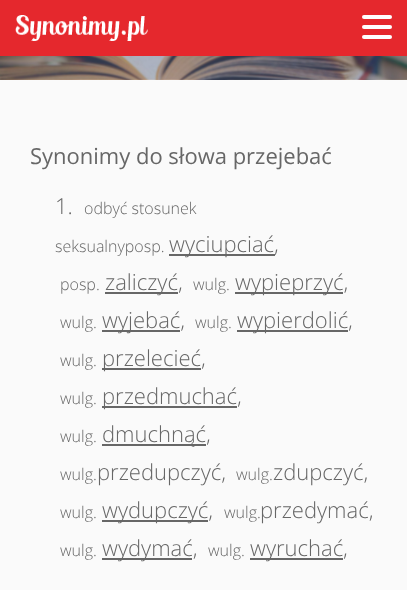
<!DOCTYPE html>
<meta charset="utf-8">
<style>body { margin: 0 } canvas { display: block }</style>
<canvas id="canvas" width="407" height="590"></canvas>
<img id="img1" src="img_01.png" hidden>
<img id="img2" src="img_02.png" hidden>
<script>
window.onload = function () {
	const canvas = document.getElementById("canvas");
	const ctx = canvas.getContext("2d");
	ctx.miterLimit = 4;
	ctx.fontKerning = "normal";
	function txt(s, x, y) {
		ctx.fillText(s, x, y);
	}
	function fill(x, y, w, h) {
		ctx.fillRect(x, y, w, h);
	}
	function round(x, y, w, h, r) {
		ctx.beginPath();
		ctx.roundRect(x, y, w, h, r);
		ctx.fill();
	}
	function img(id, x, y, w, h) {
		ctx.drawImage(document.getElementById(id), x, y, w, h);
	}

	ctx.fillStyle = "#FAFAFA";
	fill(0, 0, 407, 590);
	ctx.fillStyle = "#E5282D";
	fill(0, 0, 407, 56);
	img("img1", 15, 15, 133, 26);
	ctx.fillStyle = "#FFFFFF";
	round(362, 35, 30, 4, 2);
	round(362, 15, 30, 4, 2);
	round(362, 25, 30, 4, 2);
	img("img2", 0, 56, 407, 24);
	ctx.fillStyle = "#676767";
	fill(169, 254, 106, 2);
	fill(105, 292, 73, 2);
	fill(235, 292, 108, 2);
	fill(102, 330, 78, 2);
	fill(237, 330, 111, 2);
	fill(102, 368, 99, 2);
	fill(102, 406, 135, 2);
	fill(102, 444, 104, 2);
	fill(102, 520, 106, 2);
	fill(102, 558, 90, 2);
	fill(250, 558, 93, 2);
	ctx.font = "22px Open Sans";
	txt("Synonimy do słowa przejebać", 30, 164);
	ctx.font = "300 22px Open Sans";
	txt("1.", 55, 214);
	ctx.font = "300 16px Open Sans";
	txt("odbyć stosunek", 84, 214);
	txt("seksualnyposp.", 55, 252);
	ctx.font = "300 22px Open Sans";
	txt("wyciupciać,", 169, 252);
	ctx.font = "300 16px Open Sans";
	txt("posp.", 60, 290);
	ctx.font = "300 22px Open Sans";
	txt("zaliczyć,", 105, 290);
	ctx.font = "300 16px Open Sans";
	txt("wulg.", 193, 290);
	ctx.font = "300 22px Open Sans";
	txt("wypieprzyć,", 235, 290);
	ctx.font = "300 16px Open Sans";
	txt("wulg.", 60, 328);
	ctx.font = "300 22px Open Sans";
	txt("wyjebać,", 102, 328);
	ctx.font = "300 16px Open Sans";
	txt("wulg.", 195, 328);
	ctx.font = "300 22px Open Sans";
	txt("wypierdolić,", 237, 328);
	ctx.font = "300 16px Open Sans";
	txt("wulg.", 60, 366);
	ctx.font = "300 22px Open Sans";
	txt("przelecieć,", 102, 366);
	ctx.font = "300 16px Open Sans";
	txt("wulg.", 60, 404);
	ctx.font = "300 22px Open Sans";
	txt("przedmuchać,", 102, 404);
	ctx.font = "300 16px Open Sans";
	txt("wulg.", 60, 442);
	ctx.font = "300 22px Open Sans";
	txt("dmuchnąć,", 102, 442);
	ctx.font = "300 16px Open Sans";
	txt("wulg.", 60, 480);
	ctx.font = "300 22px Open Sans";
	txt("przedupczyć,", 97, 480);
	ctx.font = "300 16px Open Sans";
	txt("wulg.", 236, 480);
	ctx.font = "300 22px Open Sans";
	txt("zdupczyć,", 273, 480);
	ctx.font = "300 16px Open Sans";
	txt("wulg.", 60, 518);
	ctx.font = "300 22px Open Sans";
	txt("wydupczyć,", 102, 518);
	ctx.font = "300 16px Open Sans";
	txt("wulg.", 224, 518);
	ctx.font = "300 22px Open Sans";
	txt("przedymać,", 260, 518);
	ctx.font = "300 16px Open Sans";
	txt("wulg.", 60, 556);
	ctx.font = "300 22px Open Sans";
	txt("wydymać,", 102, 556);
	ctx.font = "300 16px Open Sans";
	txt("wulg.", 208, 556);
	ctx.font = "300 22px Open Sans";
	txt("wyruchać,", 250, 556);
};
</script>
